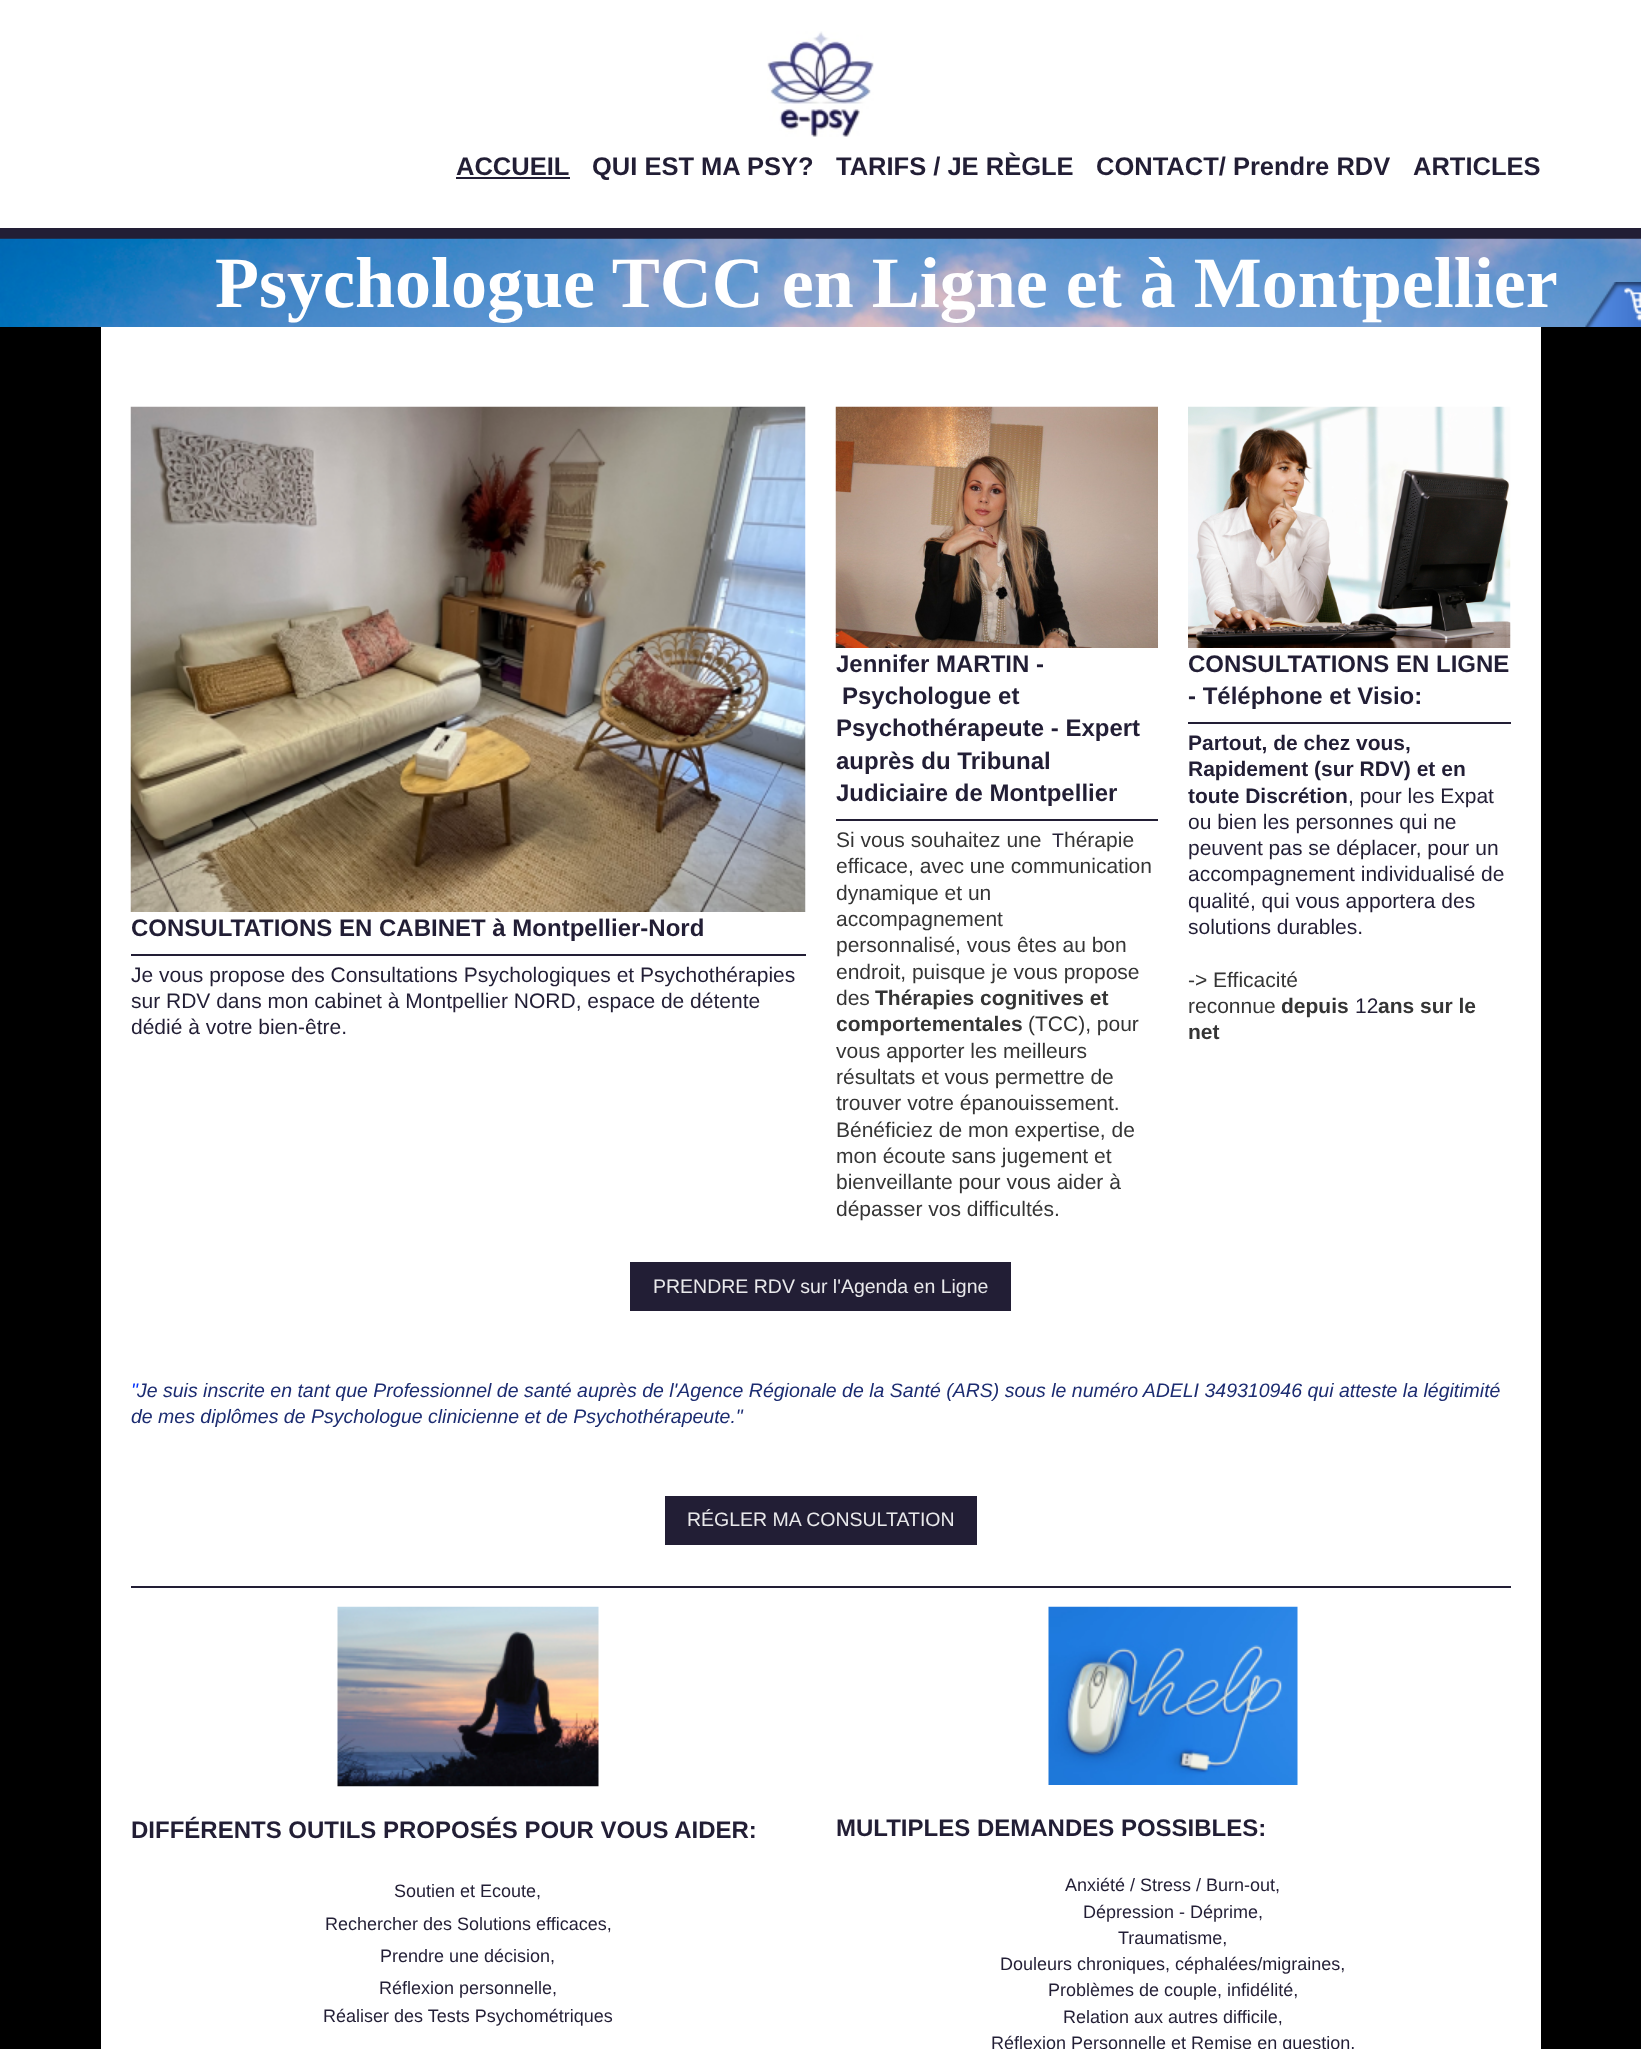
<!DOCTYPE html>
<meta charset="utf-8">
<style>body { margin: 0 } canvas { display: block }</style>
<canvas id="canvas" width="1641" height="2049"></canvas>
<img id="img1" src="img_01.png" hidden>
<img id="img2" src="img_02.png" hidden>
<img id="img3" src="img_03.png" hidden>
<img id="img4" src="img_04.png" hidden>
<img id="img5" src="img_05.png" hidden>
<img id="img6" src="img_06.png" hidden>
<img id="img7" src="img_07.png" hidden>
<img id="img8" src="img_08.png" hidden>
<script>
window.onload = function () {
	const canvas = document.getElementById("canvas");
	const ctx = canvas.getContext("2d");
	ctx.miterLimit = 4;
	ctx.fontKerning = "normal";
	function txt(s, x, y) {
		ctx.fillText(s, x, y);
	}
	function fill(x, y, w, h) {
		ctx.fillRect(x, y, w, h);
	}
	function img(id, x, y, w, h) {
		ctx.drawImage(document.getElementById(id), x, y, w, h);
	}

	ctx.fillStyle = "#000000";
	fill(0, 0, 1641, 2049);
	ctx.fillStyle = "#FFFFFF";
	fill(0, 0, 1641, 228);
	ctx.fillStyle = "#221E35";
	fill(0, 228, 1641, 11);
	img("img1", 767, 31, 107, 106);
	fill(456, 177, 114, 2);
	img("img2", 0, 238, 1641, 89);
	img("img3", 1585, 282, 56, 45);
	ctx.fillStyle = "#FFFFFF";
	fill(101, 327, 1440, 1722);
	img("img4", 130, 406, 676, 506);
	ctx.fillStyle = "#221E35";
	fill(131, 954, 675, 2);
	img("img5", 835, 406, 323, 242);
	fill(836, 819, 322, 2);
	img("img6", 1188, 406, 323, 242);
	fill(1188, 722, 323, 2);
	fill(630, 1262, 381, 49);
	fill(665, 1496, 312, 49);
	fill(131, 1586, 1380, 2);
	img("img7", 337, 1606, 262, 181);
	img("img8", 1048, 1606, 250, 179);
	ctx.font = "bold 25.5px Liberation Sans";
	txt("ACCUEIL", 456, 175);
	txt("QUI EST MA PSY?", 592, 175);
	txt("TARIFS / JE RÈGLE", 836, 175);
	txt("CONTACT/ Prendre RDV", 1096, 175);
	txt("ARTICLES", 1413, 175);
	ctx.font = "bold 72px Liberation Serif";
	ctx.fillStyle = "#FFFFFF";
	txt("Psychologue TCC en Ligne et à Montpellier", 215, 307);
	ctx.font = "bold 24px Liberation Sans";
	ctx.fillStyle = "#221E35";
	txt("CONSULTATIONS EN CABINET à Montpellier-Nord", 131, 936);
	ctx.font = "21px Liberation Sans";
	txt("Je vous propose des Consultations Psychologiques et Psychothérapies", 131, 982);
	txt("sur RDV dans mon cabinet à Montpellier NORD, espace de détente", 131, 1008);
	txt("dédié à votre bien-être.", 131, 1034);
	ctx.font = "bold 24px Liberation Sans";
	txt("Jennifer MARTIN -", 836, 672);
	txt("Psychologue et", 842, 704);
	txt("Psychothérapeute - Expert", 836, 736);
	txt("auprès du Tribunal", 836, 769);
	txt("Judiciaire de Montpellier", 836, 801);
	ctx.font = "21px Liberation Sans";
	ctx.fillStyle = "#353535";
	txt("Si vous souhaitez une", 836, 847);
	ctx.font = "19.5px Liberation Sans";
	ctx.fillStyle = "#221E35";
	txt("T", 1052, 847);
	ctx.font = "21px Liberation Sans";
	ctx.fillStyle = "#353535";
	txt("hérapie", 1064, 847);
	txt("efficace, avec une communication", 836, 873);
	txt("dynamique et un", 836, 900);
	txt("accompagnement", 836, 926);
	txt("personnalisé, vous êtes au bon", 836, 952);
	txt("endroit, puisque je vous propose", 836, 979);
	txt("des", 836, 1005);
	ctx.font = "bold 21px Liberation Sans";
	txt("Thérapies cognitives et", 875, 1005);
	txt("comportementales", 836, 1031);
	ctx.font = "21px Liberation Sans";
	txt("(TCC), pour", 1028, 1031);
	txt("vous apporter les meilleurs", 836, 1058);
	txt("résultats et vous permettre de", 836, 1084);
	txt("trouver votre épanouissement.", 836, 1110);
	txt("Bénéficiez de mon expertise, de", 836, 1137);
	txt("mon écoute sans jugement et", 836, 1163);
	txt("bienveillante pour vous aider à", 836, 1189);
	txt("dépasser vos difficultés.", 836, 1216);
	ctx.font = "bold 24px Liberation Sans";
	ctx.fillStyle = "#221E35";
	txt("CONSULTATIONS EN LIGNE", 1188, 672);
	txt("- Téléphone et Visio:", 1188, 704);
	ctx.font = "bold 21px Liberation Sans";
	txt("Partout, de chez vous,", 1188, 750);
	txt("Rapidement (sur RDV) et en", 1188, 776);
	txt("toute Discrétion", 1188, 803);
	ctx.font = "21px Liberation Sans";
	txt(", pour les Expat", 1348, 803);
	txt("ou bien les personnes qui ne", 1188, 829);
	txt("peuvent pas se déplacer, pour un", 1188, 855);
	txt("accompagnement individualisé de", 1188, 881);
	txt("qualité, qui vous apportera des", 1188, 908);
	txt("solutions durables.", 1188, 934);
	ctx.fillStyle = "#353535";
	txt("-> Efficacité", 1188, 987);
	txt("reconnue", 1188, 1013);
	ctx.font = "bold 21px Liberation Sans";
	txt("depuis", 1281, 1013);
	ctx.font = "21px Liberation Sans";
	ctx.fillStyle = "#221E35";
	txt("12", 1355, 1013);
	ctx.font = "bold 21px Liberation Sans";
	ctx.fillStyle = "#353535";
	txt("ans sur le", 1378, 1013);
	txt("net", 1188, 1039);
	ctx.font = "19.5px Liberation Sans";
	ctx.fillStyle = "#E9E9EB";
	txt("PRENDRE RDV sur l'Agenda en Ligne", 653, 1293);
	ctx.font = "italic 19.5px Liberation Sans";
	ctx.fillStyle = "#0231F9";
	txt("\"", 131, 1397);
	ctx.fillStyle = "#1C2C71";
	txt("Je suis inscrite en tant que Professionnel de santé auprès de l'Agence Régionale de la Santé (ARS) sous le numéro ADELI 349310946 qui atteste la légitimité", 137, 1397);
	txt("de mes diplômes de Psychologue clinicienne et de Psychothérapeute.\"", 131, 1423);
	ctx.font = "19.5px Liberation Sans";
	ctx.fillStyle = "#E9E9EB";
	txt("RÉGLER MA CONSULTATION", 687, 1526);
	ctx.font = "bold 24px Liberation Sans";
	ctx.fillStyle = "#221E35";
	txt("DIFFÉRENTS OUTILS PROPOSÉS POUR VOUS AIDER:", 131, 1838);
	ctx.font = "18px Liberation Sans";
	txt("Soutien et Ecoute,", 394, 1897);
	txt("Rechercher des Solutions efficaces,", 325, 1930);
	txt("Prendre une décision,", 380, 1962);
	txt("Réflexion personnelle,", 379, 1994);
	txt("Réaliser des Tests Psychométriques", 323, 2022);
	ctx.font = "bold 24px Liberation Sans";
	txt("MULTIPLES DEMANDES POSSIBLES:", 836, 1836);
	ctx.font = "18px Liberation Sans";
	txt("Anxiété / Stress / Burn-out,", 1065, 1891);
	txt("Dépression - Déprime,", 1083, 1918);
	txt("Traumatisme,", 1118, 1944);
	txt("Douleurs chroniques, céphalées/migraines,", 1000, 1970);
	txt("Problèmes de couple, infidélité,", 1048, 1996);
	txt("Relation aux autres difficile,", 1063, 2023);
	txt("Réflexion Personnelle et Remise en question,", 991, 2049);
};
</script>
